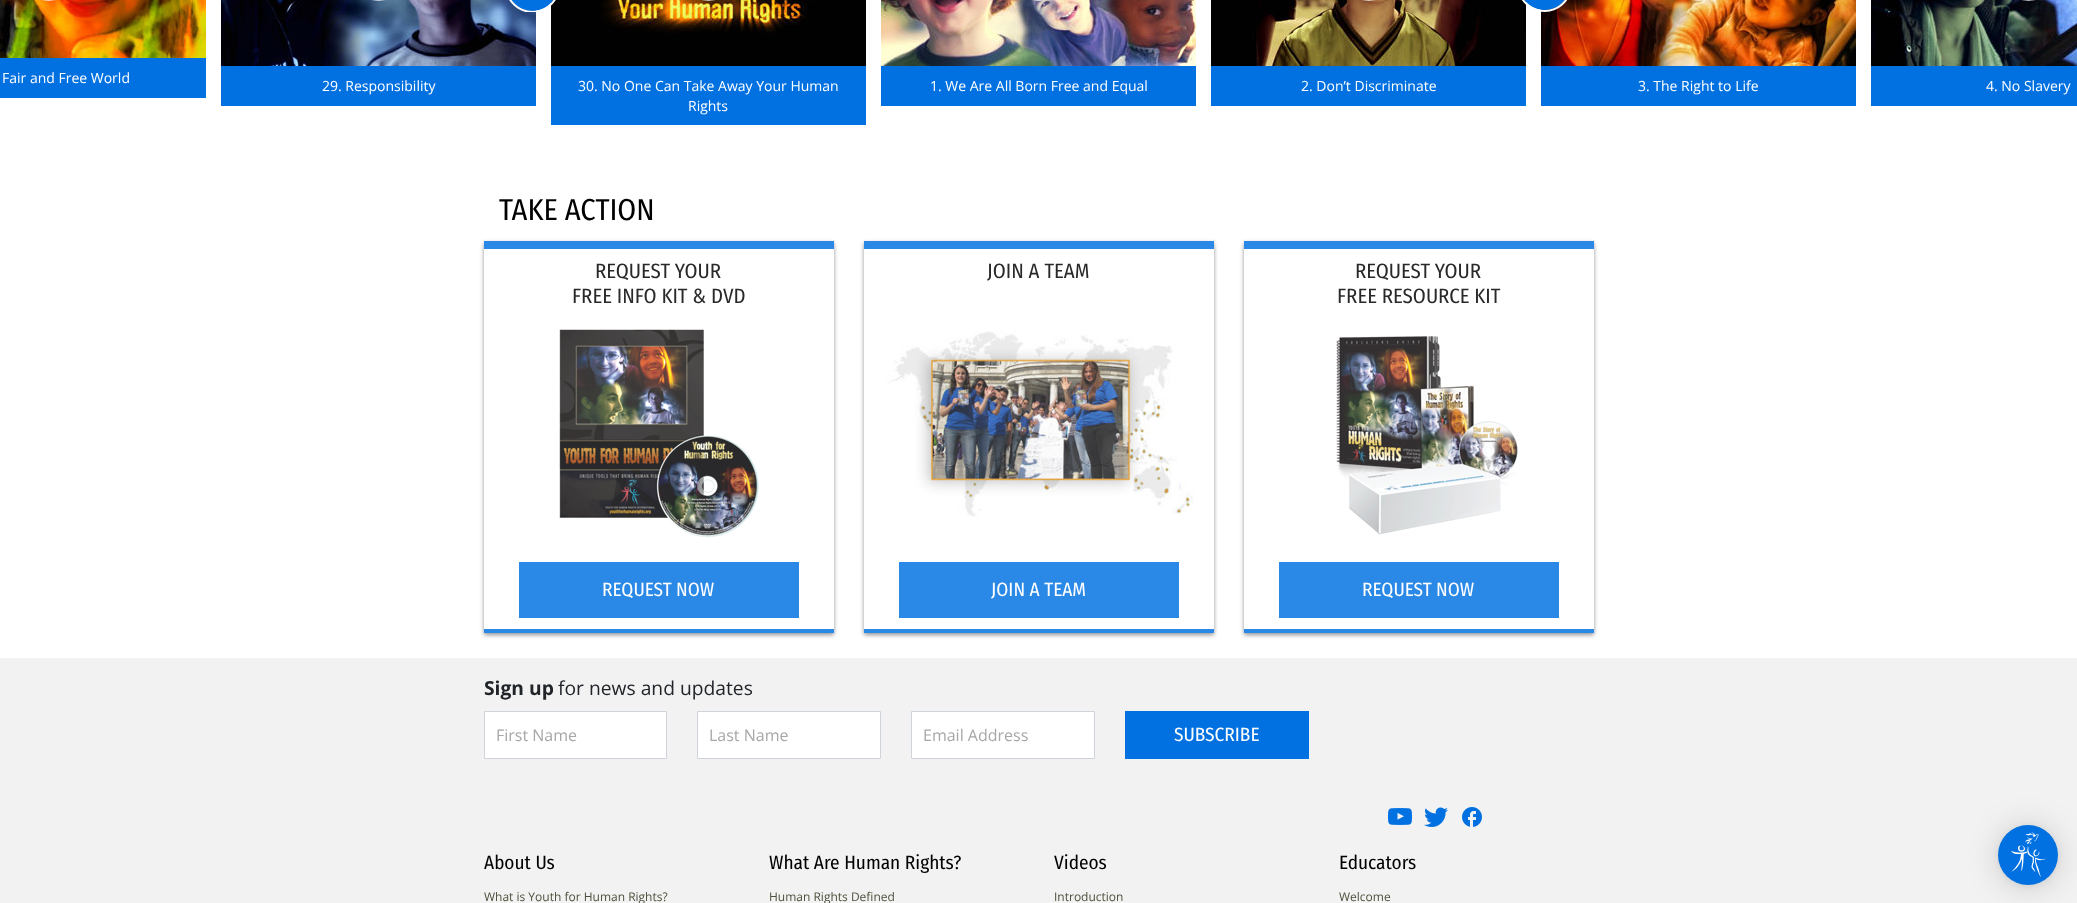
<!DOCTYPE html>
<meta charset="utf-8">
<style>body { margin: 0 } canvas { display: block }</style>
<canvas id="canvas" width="2077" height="903"></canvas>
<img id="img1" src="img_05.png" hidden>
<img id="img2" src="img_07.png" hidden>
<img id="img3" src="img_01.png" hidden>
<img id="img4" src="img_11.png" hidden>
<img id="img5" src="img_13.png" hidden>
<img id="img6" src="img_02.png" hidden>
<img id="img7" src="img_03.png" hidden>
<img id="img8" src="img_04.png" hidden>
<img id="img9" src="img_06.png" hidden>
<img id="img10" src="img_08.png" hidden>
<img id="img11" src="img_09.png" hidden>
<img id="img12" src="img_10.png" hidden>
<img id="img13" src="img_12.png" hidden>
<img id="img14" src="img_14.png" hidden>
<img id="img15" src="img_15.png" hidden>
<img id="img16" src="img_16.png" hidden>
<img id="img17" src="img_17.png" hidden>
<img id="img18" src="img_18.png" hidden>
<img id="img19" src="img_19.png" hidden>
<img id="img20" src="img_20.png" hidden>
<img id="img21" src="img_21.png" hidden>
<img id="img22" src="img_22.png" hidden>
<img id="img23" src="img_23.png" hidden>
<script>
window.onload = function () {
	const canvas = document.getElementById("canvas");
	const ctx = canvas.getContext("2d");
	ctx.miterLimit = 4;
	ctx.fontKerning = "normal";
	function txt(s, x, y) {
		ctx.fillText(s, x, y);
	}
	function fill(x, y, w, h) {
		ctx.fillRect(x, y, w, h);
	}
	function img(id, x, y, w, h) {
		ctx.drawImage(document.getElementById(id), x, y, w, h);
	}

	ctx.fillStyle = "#FFFFFF";
	fill(0, 0, 2077, 903);
	img("img1", 221, 0, 315, 66);
	img("img2", 551, 0, 315, 66);
	img("img3", 509, 0, 47, 12);
	img("img4", 1211, 0, 315, 66);
	img("img5", 1541, 0, 315, 66);
	img("img6", 1521, 0, 46, 12);
	img("img7", 0, 0, 206, 58);
	img("img8", 42, 0, 13, 1);
	ctx.fillStyle = "#0171E1";
	fill(0, 58, 206, 40);
	img("img9", 372, 0, 13, 1);
	fill(221, 66, 315, 40);
	img("img10", 702, 0, 13, 1);
	fill(551, 66, 315, 59);
	img("img11", 881, 0, 315, 66);
	img("img12", 1032, 0, 13, 1);
	fill(881, 66, 315, 40);
	img("img13", 1362, 0, 13, 1);
	fill(1211, 66, 315, 40);
	img("img14", 1692, 0, 13, 1);
	fill(1541, 66, 315, 40);
	img("img15", 1871, 0, 206, 66);
	img("img16", 2022, 0, 13, 1);
	fill(1871, 66, 206, 40);
	ctx.fillStyle = "#F2F2F2";
	fill(0, 658, 2077, 245);
	ctx.fillStyle = "rgba(0, 0, 0, 0.16)";
	ctx.filter = "blur(16px)";
	ctx.beginPath();
	ctx.roundRect(1998, 827, 60, 60, 30);
	ctx.fill();
	ctx.filter = "none";
	ctx.fillStyle = "rgba(0, 0, 0, 0.06)";
	ctx.filter = "blur(3px)";
	ctx.beginPath();
	ctx.roundRect(1998, 826, 60, 60, 30);
	ctx.fill();
	ctx.filter = "none";
	ctx.fillStyle = "#0171E1";
	ctx.beginPath();
	ctx.arc(2028, 855, 30, 0, Math.PI * 2);
	ctx.fill();
	img("img17", 2011, 832, 35, 45);
	ctx.save();
	ctx.beginPath();
	ctx.moveTo(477, 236);
	ctx.lineTo(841, 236);
	ctx.lineTo(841, 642);
	ctx.lineTo(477, 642);
	ctx.closePath();
	ctx.moveTo(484, 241);
	ctx.lineTo(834, 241);
	ctx.lineTo(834, 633);
	ctx.lineTo(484, 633);
	ctx.closePath();
	ctx.clip("evenodd");
	ctx.fillStyle = "rgba(41, 41, 41, 0.5)";
	ctx.filter = "blur(2px)";
	ctx.beginPath();
	ctx.rect(484, 243, 350, 392);
	ctx.fill();
	ctx.filter = "none";
	ctx.restore();
	ctx.fillStyle = "#2A88E6";
	fill(484, 241, 350, 8);
	fill(484, 629, 350, 4);
	img("img18", 559, 329, 200, 209);
	fill(519, 562, 280, 56);
	ctx.save();
	ctx.beginPath();
	ctx.moveTo(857, 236);
	ctx.lineTo(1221, 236);
	ctx.lineTo(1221, 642);
	ctx.lineTo(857, 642);
	ctx.closePath();
	ctx.moveTo(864, 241);
	ctx.lineTo(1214, 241);
	ctx.lineTo(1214, 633);
	ctx.lineTo(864, 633);
	ctx.closePath();
	ctx.clip("evenodd");
	ctx.fillStyle = "rgba(41, 41, 41, 0.5)";
	ctx.filter = "blur(2px)";
	ctx.beginPath();
	ctx.rect(864, 243, 350, 392);
	ctx.fill();
	ctx.filter = "none";
	ctx.restore();
	fill(864, 241, 350, 8);
	fill(864, 629, 350, 4);
	img("img19", 887, 331, 307, 186);
	fill(899, 562, 280, 56);
	ctx.save();
	ctx.beginPath();
	ctx.moveTo(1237, 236);
	ctx.lineTo(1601, 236);
	ctx.lineTo(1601, 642);
	ctx.lineTo(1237, 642);
	ctx.closePath();
	ctx.moveTo(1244, 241);
	ctx.lineTo(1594, 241);
	ctx.lineTo(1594, 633);
	ctx.lineTo(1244, 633);
	ctx.closePath();
	ctx.clip("evenodd");
	ctx.fillStyle = "rgba(41, 41, 41, 0.5)";
	ctx.filter = "blur(2px)";
	ctx.beginPath();
	ctx.rect(1244, 243, 350, 392);
	ctx.fill();
	ctx.filter = "none";
	ctx.restore();
	fill(1244, 241, 350, 8);
	fill(1244, 629, 350, 4);
	img("img20", 1336, 336, 182, 199);
	fill(1279, 562, 280, 56);
	ctx.fillStyle = "#FFFFFF";
	ctx.beginPath();
	ctx.rect(484.5, 711.5, 182, 47);
	ctx.fill();
	ctx.strokeStyle = "#CED4DA";
	ctx.stroke();
	ctx.beginPath();
	ctx.rect(697.5, 711.5, 183, 47);
	ctx.fill();
	ctx.stroke();
	ctx.beginPath();
	ctx.rect(911.5, 711.5, 183, 47);
	ctx.fill();
	ctx.stroke();
	ctx.fillStyle = "#0171E1";
	fill(1125, 711, 184, 48);
	img("img21", 1388, 808, 24, 17);
	img("img22", 1424, 807, 24, 20);
	img("img23", 1462, 807, 20, 20);
	ctx.font = "14px Open Sans";
	ctx.fillStyle = "#FFFFFF";
	txt("Fair and Free World", 2, 83);
	txt("29. Responsibility", 322, 91);
	txt("30. No One Can Take Away Your Human", 578, 91);
	txt("Rights", 688, 111);
	txt("1. We Are All Born Free and Equal", 930, 91);
	txt("2. Don’t Discriminate", 1301, 91);
	txt("3. The Right to Life", 1638, 91);
	txt("4. No Slavery", 1986, 91);
	ctx.font = "30.25px Fira Sans Condensed";
	ctx.fillStyle = "#000000";
	txt("TAKE ACTION", 499, 220);
	ctx.font = "20.75px Fira Sans Condensed";
	ctx.fillStyle = "#292929";
	txt("REQUEST YOUR", 595, 278);
	txt("FREE INFO KIT & DVD", 572, 303);
	ctx.font = "19.25px Fira Sans Condensed";
	ctx.fillStyle = "#FFFFFF";
	txt("REQUEST NOW", 602, 596);
	ctx.font = "20.75px Fira Sans Condensed";
	ctx.fillStyle = "#292929";
	txt("JOIN A TEAM", 987, 278);
	ctx.font = "19.25px Fira Sans Condensed";
	ctx.fillStyle = "#FFFFFF";
	txt("JOIN A TEAM", 991, 596);
	ctx.font = "20.75px Fira Sans Condensed";
	ctx.fillStyle = "#292929";
	txt("REQUEST YOUR", 1355, 278);
	txt("FREE RESOURCE KIT", 1337, 303);
	ctx.font = "19.25px Fira Sans Condensed";
	ctx.fillStyle = "#FFFFFF";
	txt("REQUEST NOW", 1362, 596);
	ctx.font = "bold 19.25px Open Sans";
	ctx.fillStyle = "#212529";
	txt("Sign up", 484, 695);
	ctx.font = "19.25px Open Sans";
	txt("for news and updates", 558, 695);
	ctx.font = "16px Open Sans";
	ctx.fillStyle = "#A7A7A7";
	txt("First Name", 496, 741);
	txt("Last Name", 709, 741);
	txt("Email Address", 923, 741);
	ctx.font = "19.25px Fira Sans Condensed";
	ctx.fillStyle = "#FFFFFF";
	txt("SUBSCRIBE", 1174, 741);
	ctx.fillStyle = "#000000";
	txt("About Us", 484, 869);
	ctx.font = "12px Open Sans";
	ctx.fillStyle = "#4E503C";
	txt("What is Youth for Human Rights?", 484, 901);
	ctx.font = "19.25px Fira Sans Condensed";
	ctx.fillStyle = "#000000";
	txt("What Are Human Rights?", 769, 869);
	ctx.font = "12px Open Sans";
	ctx.fillStyle = "#4E503C";
	txt("Human Rights Defined", 769, 901);
	ctx.font = "19.25px Fira Sans Condensed";
	ctx.fillStyle = "#000000";
	txt("Videos", 1054, 869);
	ctx.font = "12px Open Sans";
	ctx.fillStyle = "#4E503C";
	txt("Introduction", 1054, 901);
	ctx.font = "19.25px Fira Sans Condensed";
	ctx.fillStyle = "#000000";
	txt("Educators", 1339, 869);
	ctx.font = "12px Open Sans";
	ctx.fillStyle = "#4E503C";
	txt("Welcome", 1339, 901);
};
</script>
